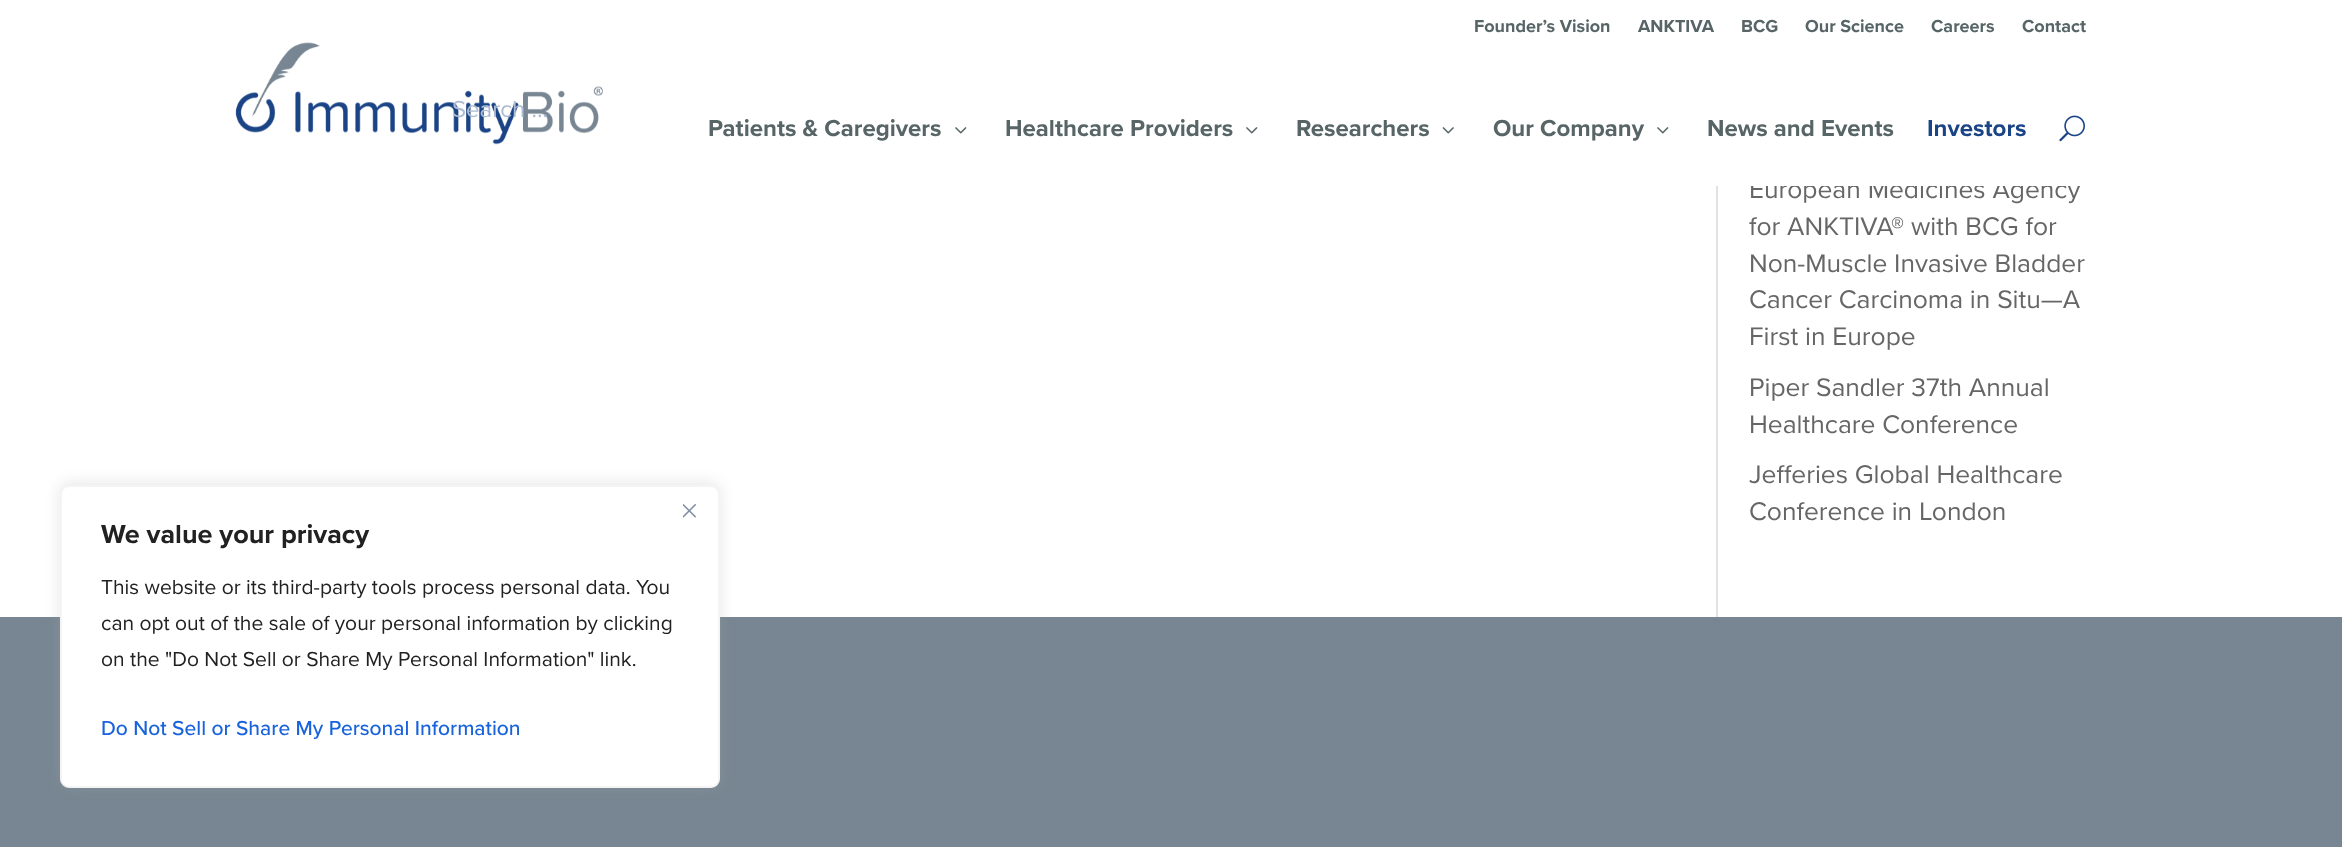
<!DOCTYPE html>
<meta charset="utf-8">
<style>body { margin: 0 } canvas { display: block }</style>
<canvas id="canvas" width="2342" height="847"></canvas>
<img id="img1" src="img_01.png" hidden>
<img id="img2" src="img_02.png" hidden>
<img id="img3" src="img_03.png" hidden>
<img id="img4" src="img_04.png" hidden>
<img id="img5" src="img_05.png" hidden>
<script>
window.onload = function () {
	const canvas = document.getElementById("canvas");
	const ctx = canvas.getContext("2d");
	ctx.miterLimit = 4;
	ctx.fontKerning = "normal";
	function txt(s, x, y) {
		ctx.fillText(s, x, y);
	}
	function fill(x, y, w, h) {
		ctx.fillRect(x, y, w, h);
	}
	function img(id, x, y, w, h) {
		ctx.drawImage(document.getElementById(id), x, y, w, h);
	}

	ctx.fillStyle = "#FFFFFF";
	fill(0, 0, 2342, 847);
	img("img1", 235, 42, 368, 103);
	img("img2", 955, 127, 12, 7);
	img("img2", 1246, 127, 12, 7);
	img("img3", 1442, 127, 12, 7);
	img("img2", 1657, 127, 12, 7);
	img("img4", 2059, 115, 26, 27);
	ctx.fillStyle = "#E2E2E2";
	fill(1716, 186, 2, 431);
	ctx.fillStyle = "#778692";
	fill(0, 617, 2342, 230);
	ctx.fillStyle = "rgba(172, 171, 171, 0.3)";
	ctx.filter = "blur(7.5px)";
	ctx.beginPath();
	ctx.roundRect(60, 483, 660, 303, 9);
	ctx.fill();
	ctx.filter = "none";
	ctx.fillStyle = "#FFFFFF";
	ctx.beginPath();
	ctx.roundRect(61, 486, 658, 301, 8);
	ctx.fill();
	ctx.strokeStyle = "#F4F4F4";
	ctx.lineWidth = 2;
	ctx.stroke();
	img("img5", 683, 504, 13, 14);
	ctx.font = "bold 18px Proxima Nova";
	ctx.fillStyle = "#576566";
	txt("Founder’s Vision", 1474, 32);
	txt("ANKTIVA", 1638, 32);
	txt("BCG", 1741, 32);
	txt("Our Science", 1805, 32);
	txt("Careers", 1931, 32);
	txt("Contact", 2022, 32);
	ctx.font = "24px Proxima Nova";
	ctx.fillStyle = "#ADBCD3";
	txt("Search …", 452, 117);
	ctx.font = "bold 24px Proxima Nova";
	ctx.fillStyle = "#576566";
	txt("Patients & Caregivers", 708, 136);
	txt("Healthcare Providers", 1005, 136);
	txt("Researchers", 1296, 136);
	txt("Our Company", 1493, 136);
	txt("News and Events", 1707, 136);
	ctx.fillStyle = "#1B4486";
	txt("Investors", 1927, 136);
	ctx.font = "26.4px Proxima Nova";
	ctx.fillStyle = "#666666";
	txt("European Medicines Agency", 1749, 198);
	ctx.fillStyle = "#FFFFFF";
	fill(1751, 180, 330, 6);
	ctx.fillStyle = "#666666";
	txt("for ANKTIVA® with BCG for", 1749, 235);
	txt("Non-Muscle Invasive Bladder", 1749, 272);
	txt("Cancer Carcinoma in Situ—A", 1749, 308);
	txt("First in Europe", 1749, 345);
	txt("Piper Sandler 37th Annual", 1749, 396);
	txt("Healthcare Conference", 1749, 433);
	txt("Jefferies Global Healthcare", 1749, 483);
	txt("Conference in London", 1749, 520);
	ctx.font = "bold 27px Proxima Nova";
	ctx.fillStyle = "#212121";
	txt("We value your privacy", 101, 543);
	ctx.font = "21px Proxima Nova";
	txt("This website or its third-party tools process personal data. You", 101, 594);
	txt("can opt out of the sale of your personal information by clicking", 101, 630);
	txt("on the \"Do Not Sell or Share My Personal Information\" link.", 101, 666);
	ctx.font = "500 21px Proxima Nova";
	ctx.fillStyle = "#1863DC";
	txt("Do Not Sell or Share My Personal Information", 101, 735);
};
</script>
